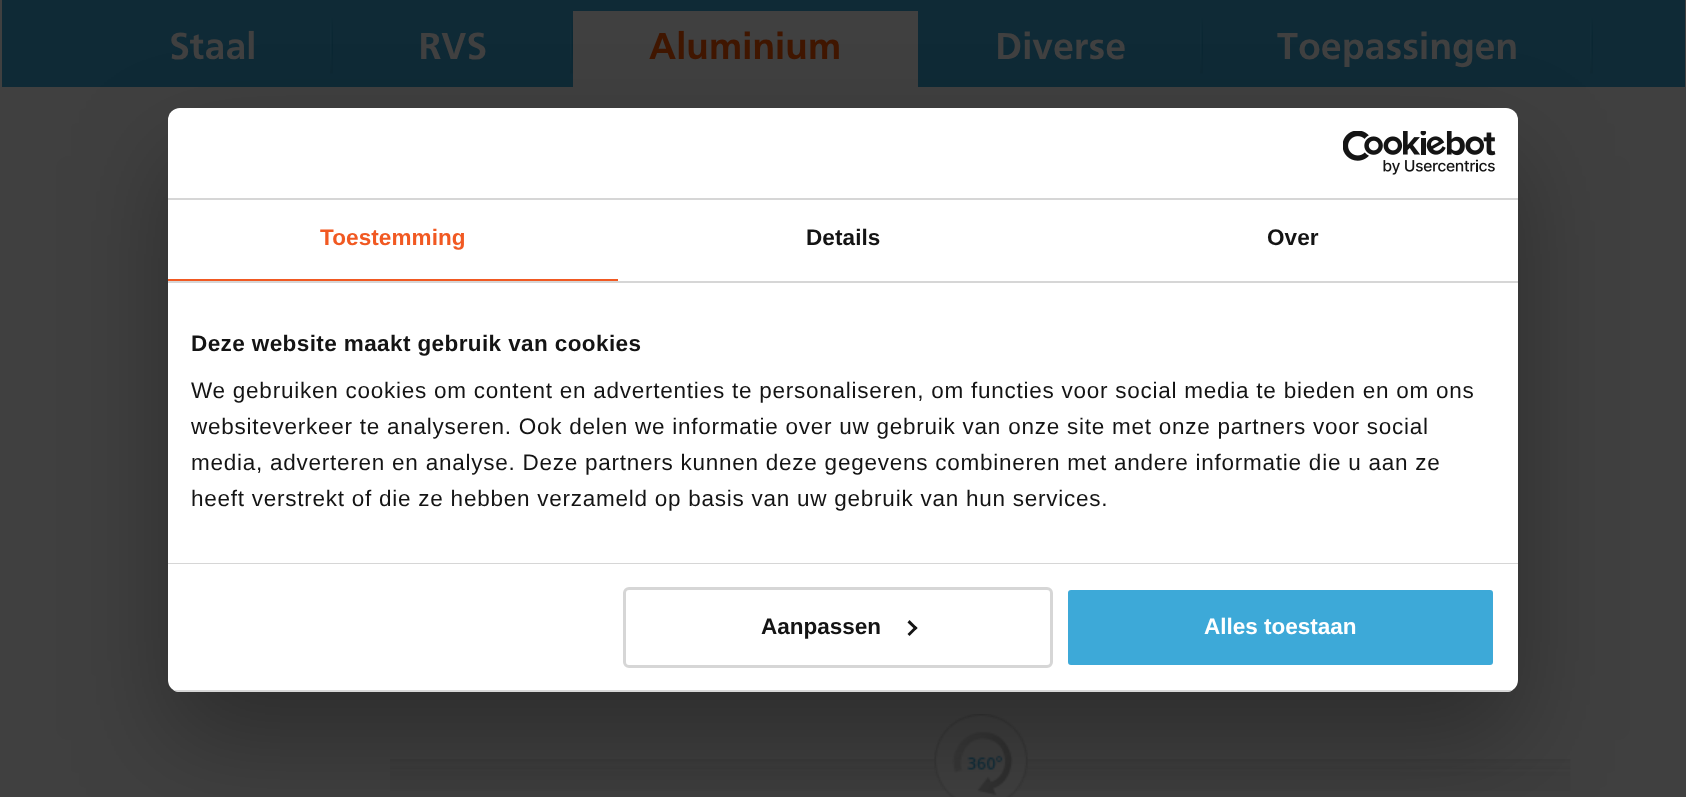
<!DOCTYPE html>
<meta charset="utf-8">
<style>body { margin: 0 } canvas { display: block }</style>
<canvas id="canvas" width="1686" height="797"></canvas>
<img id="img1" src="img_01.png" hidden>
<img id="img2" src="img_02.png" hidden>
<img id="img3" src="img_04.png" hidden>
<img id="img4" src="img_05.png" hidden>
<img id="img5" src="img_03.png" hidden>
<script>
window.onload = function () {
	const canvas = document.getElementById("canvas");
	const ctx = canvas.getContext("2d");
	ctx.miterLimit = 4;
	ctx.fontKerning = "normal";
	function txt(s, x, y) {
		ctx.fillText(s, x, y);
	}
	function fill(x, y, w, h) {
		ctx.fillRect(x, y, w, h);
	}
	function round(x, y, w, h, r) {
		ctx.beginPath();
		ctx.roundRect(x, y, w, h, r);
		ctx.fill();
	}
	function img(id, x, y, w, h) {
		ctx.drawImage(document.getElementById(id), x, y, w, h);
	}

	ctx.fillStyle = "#404040";
	fill(0, 0, 1686, 797);
	ctx.fillStyle = "#0F2A36";
	fill(2, 0, 1683, 87);
	img("img1", 330, 18, 3, 56);
	img("img1", 570, 18, 3, 56);
	ctx.fillStyle = "#404040";
	fill(573, 11, 345, 76);
	img("img1", 1200, 18, 3, 56);
	img("img2", 1590, 18, 3, 56);
	img("img3", 390, 759, 1181, 32);
	img("img4", 934, 714, 94, 83);
	ctx.fillStyle = "rgba(0, 0, 0, 0.3)";
	ctx.filter = "blur(51px)";
	ctx.beginPath();
	ctx.roundRect(168, 156, 1350, 584, 12);
	ctx.fill();
	ctx.filter = "none";
	ctx.fillStyle = "#FFFFFF";
	round(168, 108, 1350, 584, 12);
	ctx.fillStyle = "#D6D6D6";
	fill(168, 198, 1350, 2);
	img("img5", 1343, 131, 153, 44);
	fill(168, 281, 1350, 2);
	ctx.fillStyle = "#F15922";
	fill(168, 279, 450, 2);
	ctx.fillStyle = "#D6D6D6";
	fill(168, 563, 1350, 1);
	ctx.save();
	ctx.beginPath();
	ctx.roundRect(168, 108, 1350, 584, 12);
	ctx.clip();
	fill(168, 690, 1350, 2);
	ctx.restore();
	ctx.beginPath();
	ctx.roundRect(624.5, 588.5, 427, 78, 4.5);
	ctx.strokeStyle = "#D6D6D6";
	ctx.lineWidth = 3;
	ctx.stroke();
	ctx.fillStyle = "#141414";
	ctx.beginPath();
	ctx.moveTo(909.5, 620);
	ctx.lineTo(917.5, 628);
	ctx.lineTo(915.5, 630);
	ctx.lineTo(907.5, 622.5);
	ctx.closePath();
	ctx.fill();
	ctx.beginPath();
	ctx.moveTo(915.5, 626);
	ctx.lineTo(917.5, 628);
	ctx.lineTo(909.5, 636);
	ctx.lineTo(907.5, 634);
	ctx.closePath();
	ctx.fill();
	ctx.fillStyle = "#3DA9D8";
	ctx.beginPath();
	ctx.roundRect(1066.5, 588.5, 428, 78, 4.5);
	ctx.fill();
	ctx.strokeStyle = "#FFFFFF";
	ctx.stroke();
	ctx.font = "bold 39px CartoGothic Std";
	ctx.fillStyle = "#404040";
	txt("Staal", 169, 59);
	txt("RVS", 418, 59);
	ctx.fillStyle = "#401600";
	txt("Aluminium", 649, 59);
	ctx.fillStyle = "#404040";
	txt("Diverse", 995, 59);
	txt("Toepassingen", 1277, 59);
	ctx.letterSpacing = "0.1px";
	ctx.font = "bold 22.5px Liberation Sans";
	ctx.fillStyle = "#F15922";
	txt("Toestemming", 320, 245);
	ctx.fillStyle = "#141414";
	txt("Details", 806, 245);
	txt("Over", 1267, 245);
	ctx.letterSpacing = "0.4px";
	txt("Deze website maakt gebruik van cookies", 191, 351);
	ctx.letterSpacing = "0.75px";
	ctx.font = "22.5px Liberation Sans";
	txt("We gebruiken cookies om content en advertenties te personaliseren, om functies voor social media te bieden en om ons", 191, 398);
	txt("websiteverkeer te analyseren. Ook delen we informatie over uw gebruik van onze site met onze partners voor social", 191, 434);
	txt("media, adverteren en analyse. Deze partners kunnen deze gegevens combineren met andere informatie die u aan ze", 191, 470);
	txt("heeft verstrekt of die ze hebben verzameld op basis van uw gebruik van hun services.", 191, 506);
	ctx.letterSpacing = "0px";
	ctx.font = "bold 22.5px Liberation Sans";
	txt("Aanpassen", 761, 634);
	ctx.fillStyle = "#FFFFFF";
	txt("Alles toestaan", 1204, 634);
};
</script>
